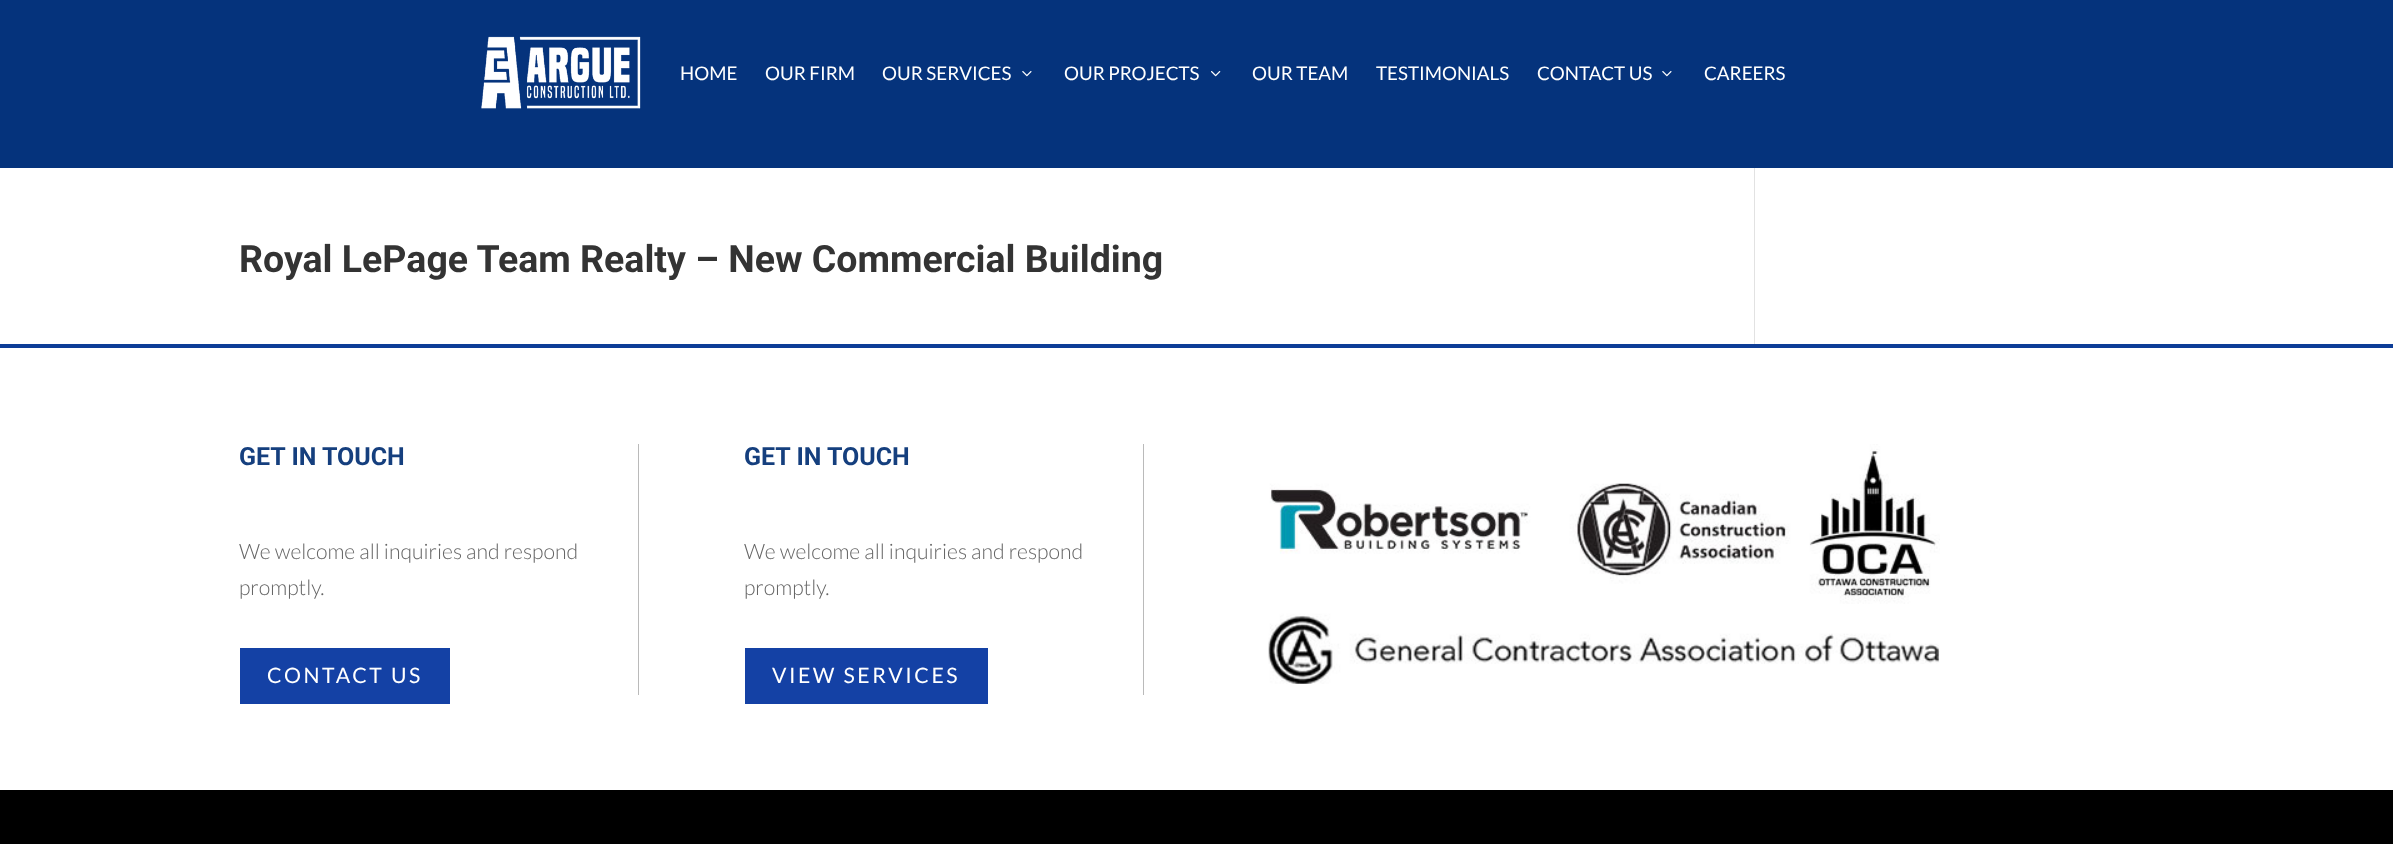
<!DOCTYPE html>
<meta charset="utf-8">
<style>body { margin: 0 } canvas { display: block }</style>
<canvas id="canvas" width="2393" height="844"></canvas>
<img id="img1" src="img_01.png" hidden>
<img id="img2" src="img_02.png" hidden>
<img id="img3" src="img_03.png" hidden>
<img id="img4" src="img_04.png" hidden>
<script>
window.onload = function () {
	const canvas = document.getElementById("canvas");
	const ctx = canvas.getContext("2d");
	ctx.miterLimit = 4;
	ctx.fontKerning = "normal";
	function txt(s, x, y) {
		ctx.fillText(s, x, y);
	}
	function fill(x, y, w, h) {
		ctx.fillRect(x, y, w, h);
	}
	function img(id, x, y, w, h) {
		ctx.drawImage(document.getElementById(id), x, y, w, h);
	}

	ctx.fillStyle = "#FFFFFF";
	fill(0, 0, 2393, 844);
	ctx.fillStyle = "#05337C";
	fill(0, 0, 2393, 168);
	img("img1", 481, 36, 160, 73);
	img("img2", 1022, 71, 10, 6);
	img("img3", 1211, 71, 10, 6);
	img("img2", 1662, 71, 10, 6);
	ctx.fillStyle = "#E2E2E2";
	fill(1754, 168, 1, 176);
	ctx.fillStyle = "#0D3D97";
	fill(0, 344, 2393, 4);
	ctx.fillStyle = "#BABABA";
	fill(638, 444, 1, 251);
	ctx.fillStyle = "#1441A5";
	fill(240, 648, 210, 56);
	ctx.fillStyle = "#BABABA";
	fill(1143, 444, 1, 251);
	ctx.fillStyle = "#1441A5";
	fill(745, 648, 243, 56);
	img("img4", 1268, 444, 672, 240);
	ctx.fillStyle = "#000000";
	fill(0, 790, 2393, 54);
	ctx.font = "18.75px Lato";
	ctx.fillStyle = "#FFFFFF";
	txt("HOME", 680, 80);
	txt("OUR FIRM", 765, 80);
	txt("OUR SERVICES", 882, 80);
	txt("OUR PROJECTS", 1064, 80);
	txt("OUR TEAM", 1252, 80);
	txt("TESTIMONIALS", 1376, 80);
	txt("CONTACT US", 1537, 80);
	txt("CAREERS", 1704, 80);
	ctx.font = "bold 37.5px Roboto";
	ctx.fillStyle = "#333333";
	txt("Royal LePage Team Realty – New Commercial Building", 239, 272);
	ctx.font = "bold 25px Roboto";
	ctx.fillStyle = "#153F7E";
	txt("GET IN TOUCH", 239, 465);
	ctx.font = "300 21.25px Lato";
	ctx.fillStyle = "#666666";
	txt("We welcome all inquiries and respond", 239, 559);
	txt("promptly.", 239, 595);
	ctx.letterSpacing = "2.5px";
	ctx.font = "21.25px Lato";
	ctx.fillStyle = "#FFFFFF";
	txt("CONTACT US", 267, 683);
	ctx.letterSpacing = "0px";
	ctx.font = "bold 25px Roboto";
	ctx.fillStyle = "#153F7E";
	txt("GET IN TOUCH", 744, 465);
	ctx.font = "300 21.25px Lato";
	ctx.fillStyle = "#666666";
	txt("We welcome all inquiries and respond", 744, 559);
	txt("promptly.", 744, 595);
	ctx.letterSpacing = "2.5px";
	ctx.font = "21.25px Lato";
	ctx.fillStyle = "#FFFFFF";
	txt("VIEW SERVICES", 772, 683);
};
</script>
